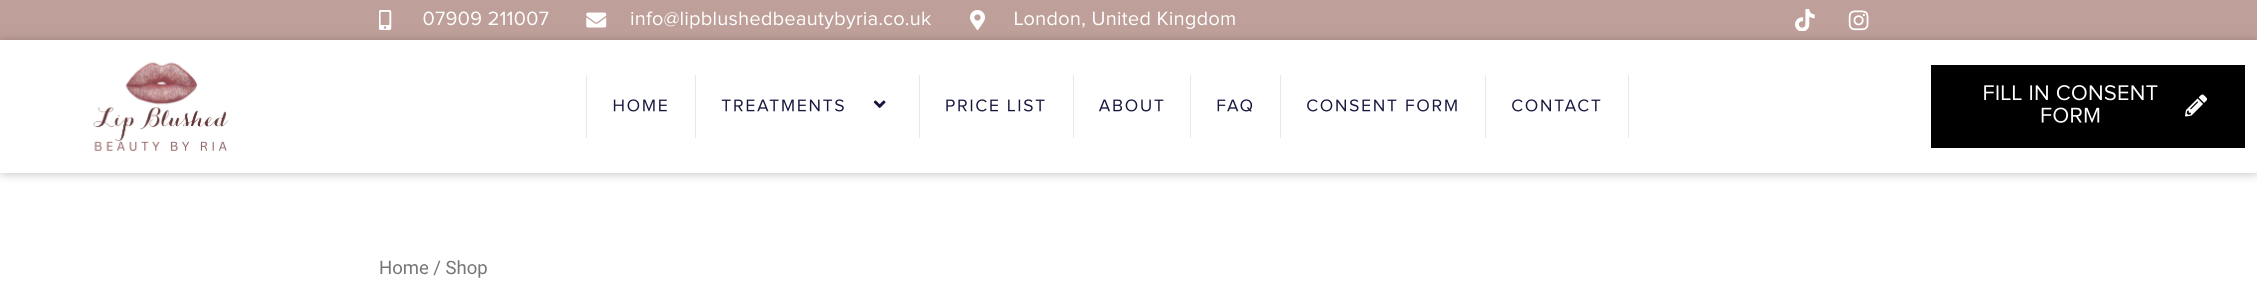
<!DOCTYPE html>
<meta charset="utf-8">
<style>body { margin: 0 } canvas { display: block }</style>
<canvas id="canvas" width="2257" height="302"></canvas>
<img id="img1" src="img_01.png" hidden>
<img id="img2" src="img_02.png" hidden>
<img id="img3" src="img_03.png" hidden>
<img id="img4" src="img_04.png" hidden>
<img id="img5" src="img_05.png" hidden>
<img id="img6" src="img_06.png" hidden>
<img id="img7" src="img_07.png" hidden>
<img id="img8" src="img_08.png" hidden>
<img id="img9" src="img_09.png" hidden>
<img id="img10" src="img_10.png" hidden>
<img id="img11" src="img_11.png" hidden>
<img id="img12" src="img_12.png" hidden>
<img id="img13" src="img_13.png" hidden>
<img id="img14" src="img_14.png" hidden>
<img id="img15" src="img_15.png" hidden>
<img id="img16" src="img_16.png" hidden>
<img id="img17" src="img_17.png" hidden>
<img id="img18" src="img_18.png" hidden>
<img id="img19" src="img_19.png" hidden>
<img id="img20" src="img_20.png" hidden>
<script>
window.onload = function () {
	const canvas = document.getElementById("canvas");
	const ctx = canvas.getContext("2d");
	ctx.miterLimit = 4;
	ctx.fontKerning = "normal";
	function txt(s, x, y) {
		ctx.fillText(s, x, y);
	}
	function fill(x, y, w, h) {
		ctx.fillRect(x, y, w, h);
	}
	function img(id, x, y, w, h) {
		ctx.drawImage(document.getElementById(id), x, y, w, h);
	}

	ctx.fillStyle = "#FFFFFF";
	fill(0, 0, 2257, 302);
	ctx.fillStyle = "#BE9F99";
	fill(0, 0, 2257, 40);
	img("img1", 379, 10, 13, 20);
	img("img2", 423, 11, 126, 15);
	img("img3", 586, 12, 21, 16);
	img("img4", 631, 11, 300, 18);
	img("img5", 970, 10, 15, 20);
	img("img6", 1015, 11, 220, 18);
	img("img7", 1795, 9, 20, 22);
	img("img8", 1848, 10, 21, 21);
	ctx.fillStyle = "rgba(0, 0, 0, 0.24)";
	ctx.filter = "blur(5px)";
	ctx.beginPath();
	ctx.rect(0, 41, 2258, 133);
	ctx.fill();
	ctx.filter = "none";
	ctx.fillStyle = "#FFFFFF";
	fill(0, 40, 2257, 133);
	img("img9", 93, 60, 136, 92);
	ctx.fillStyle = "#E9E9E9";
	fill(695, 75, 1, 63);
	fill(586, 75, 1, 63);
	img("img10", 613, 99, 54, 13);
	fill(919, 75, 1, 63);
	img("img11", 721, 99, 123, 13);
	img("img12", 873, 100, 13, 8);
	fill(1073, 75, 1, 63);
	img("img13", 946, 99, 99, 13);
	fill(1190, 75, 1, 63);
	img("img14", 1099, 99, 65, 13);
	fill(1280, 75, 1, 63);
	img("img15", 1217, 99, 36, 13);
	fill(1485, 75, 1, 63);
	img("img16", 1307, 99, 150, 13);
	fill(1628, 75, 1, 63);
	img("img17", 1512, 99, 89, 13);
	ctx.fillStyle = "#000000";
	fill(1931, 65, 314, 83);
	img("img18", 1984, 85, 174, 16);
	img("img19", 2041, 107, 59, 16);
	img("img20", 2185, 94, 22, 23);
	ctx.font = "18.5px Roboto";
	ctx.fillStyle = "#777777";
	txt("Home / Shop", 379, 274);
};
</script>
